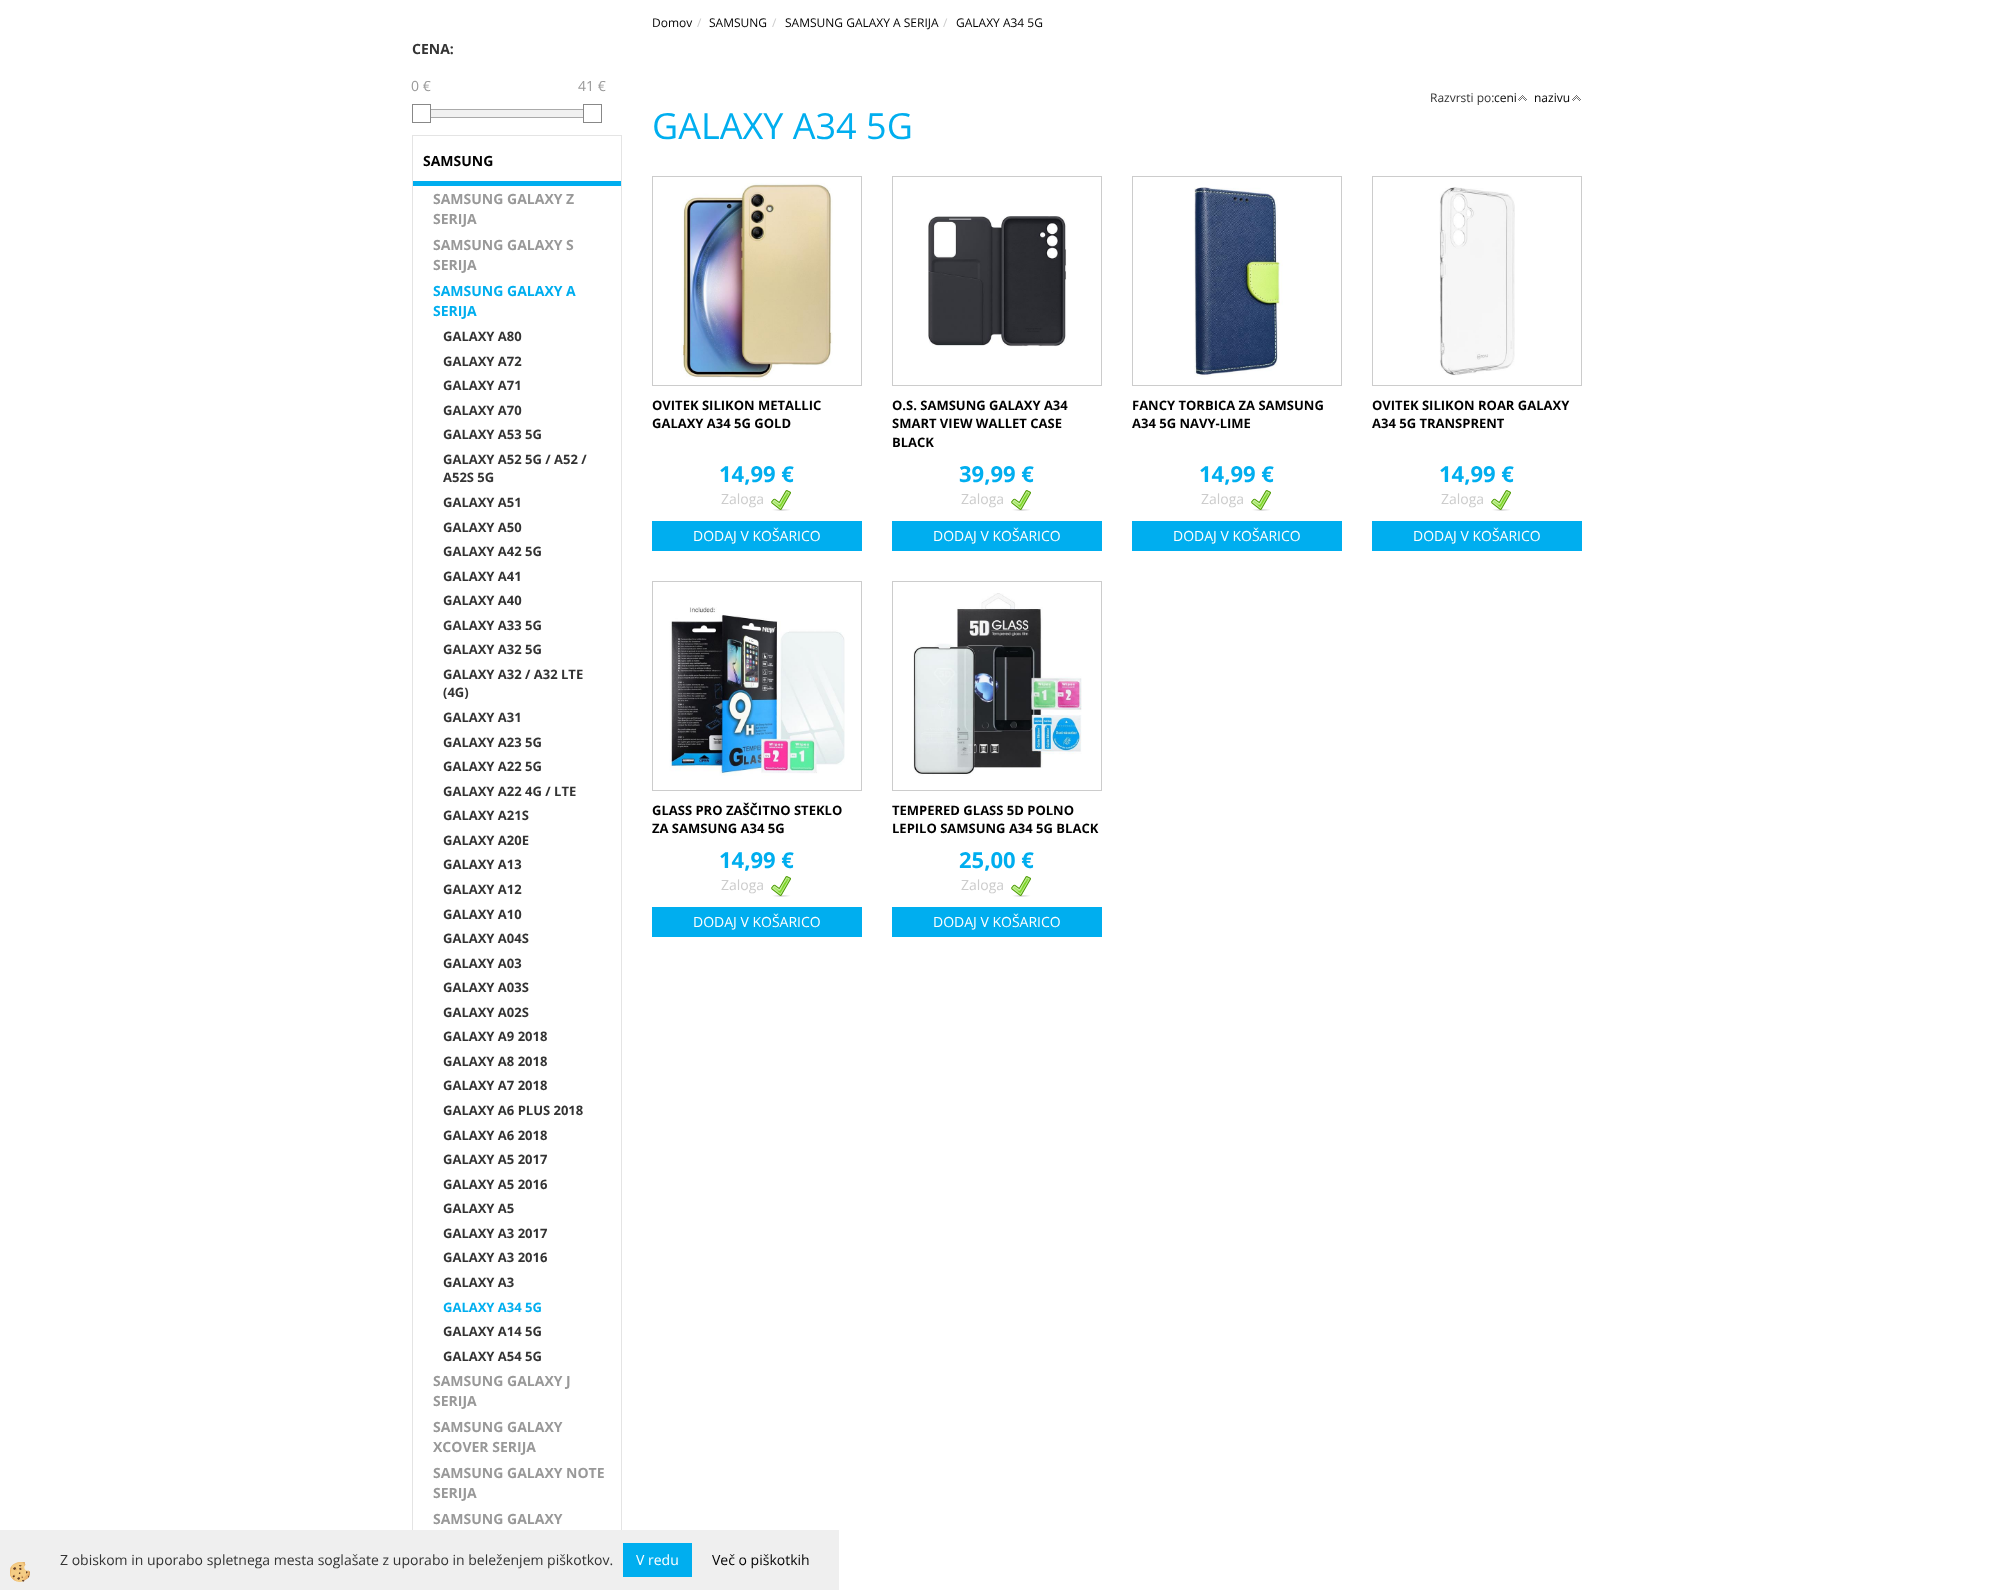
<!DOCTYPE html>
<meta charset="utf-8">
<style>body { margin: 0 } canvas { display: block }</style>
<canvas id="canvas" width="1993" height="1590"></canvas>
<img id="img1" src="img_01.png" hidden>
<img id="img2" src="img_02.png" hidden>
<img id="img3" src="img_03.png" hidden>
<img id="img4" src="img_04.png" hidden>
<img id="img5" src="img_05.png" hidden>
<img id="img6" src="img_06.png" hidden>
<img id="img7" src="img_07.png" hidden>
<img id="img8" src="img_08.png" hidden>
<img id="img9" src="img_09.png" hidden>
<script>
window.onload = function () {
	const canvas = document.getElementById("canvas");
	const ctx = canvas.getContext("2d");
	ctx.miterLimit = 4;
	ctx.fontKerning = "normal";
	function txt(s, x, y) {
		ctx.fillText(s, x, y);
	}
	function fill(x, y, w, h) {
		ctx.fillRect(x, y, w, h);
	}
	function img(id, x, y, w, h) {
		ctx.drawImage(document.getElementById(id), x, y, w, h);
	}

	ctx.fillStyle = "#FFFFFF";
	fill(0, 0, 1993, 1590);
	ctx.fillStyle = "#F1F1F1";
	fill(431, 110, 152, 7);
	ctx.strokeStyle = "#AAAAAA";
	ctx.strokeRect(421.5, 109.5, 170, 8);
	ctx.fillStyle = "#FFFFFF";
	fill(421, 109, 9, 9);
	ctx.strokeStyle = "#888888";
	ctx.strokeRect(412.5, 104.5, 18, 18);
	fill(584, 109, 8, 9);
	ctx.strokeRect(583.5, 104.5, 18, 18);
	ctx.strokeStyle = "#E4E4E4";
	ctx.strokeRect(412.5, 135.5, 209, 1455);
	ctx.fillStyle = "#00AEEF";
	fill(413, 181, 208, 5);
	img("img1", 1518, 95, 9, 6);
	img("img1", 1572, 95, 9, 6);
	ctx.strokeStyle = "#CCCCCC";
	ctx.strokeRect(652.5, 176.5, 209, 209);
	img("img2", 681, 183, 152, 198);
	img("img3", 771, 490, 20, 21);
	fill(652, 521, 210, 30);
	ctx.strokeRect(892.5, 176.5, 209, 209);
	img("img4", 928, 216, 139, 131);
	img("img3", 1011, 490, 20, 21);
	fill(892, 521, 210, 30);
	ctx.strokeRect(1132.5, 176.5, 209, 209);
	img("img5", 1194, 187, 89, 190);
	img("img3", 1251, 490, 20, 21);
	fill(1132, 521, 210, 30);
	ctx.strokeRect(1372.5, 176.5, 209, 209);
	img("img6", 1439, 187, 76, 189);
	img("img3", 1491, 490, 20, 21);
	fill(1372, 521, 210, 30);
	ctx.strokeRect(652.5, 581.5, 209, 209);
	img("img7", 669, 607, 176, 169);
	img("img3", 771, 876, 20, 21);
	fill(652, 907, 210, 30);
	ctx.strokeRect(892.5, 581.5, 209, 209);
	img("img8", 913, 593, 169, 183);
	img("img3", 1011, 876, 20, 21);
	fill(892, 907, 210, 30);
	ctx.fillStyle = "#EFEFEF";
	fill(0, 1530, 839, 60);
	img("img9", 10, 1562, 20, 20);
	ctx.fillStyle = "#00AEEF";
	fill(623, 1543, 69, 34);
	ctx.font = "bold 14px Open Sans";
	ctx.fillStyle = "#333333";
	txt("CENA:", 412, 54);
	ctx.font = "14px Open Sans";
	ctx.fillStyle = "#999999";
	txt("0 €", 411, 91);
	txt("41 €", 578, 91);
	ctx.font = "bold 14px Open Sans";
	ctx.fillStyle = "#000000";
	txt("SAMSUNG", 423, 166);
	ctx.fillStyle = "#999999";
	txt("SAMSUNG GALAXY Z", 433, 204);
	txt("SERIJA", 433, 224);
	txt("SAMSUNG GALAXY S", 433, 250);
	txt("SERIJA", 433, 270);
	ctx.fillStyle = "#00AEEF";
	txt("SAMSUNG GALAXY A", 433, 296);
	txt("SERIJA", 433, 316);
	ctx.font = "bold 13px Open Sans";
	ctx.fillStyle = "#333333";
	txt("GALAXY A80", 443, 341);
	txt("GALAXY A72", 443, 366);
	txt("GALAXY A71", 443, 390);
	txt("GALAXY A70", 443, 415);
	txt("GALAXY A53 5G", 443, 439);
	txt("GALAXY A52 5G / A52 /", 443, 464);
	txt("A52S 5G", 443, 482);
	txt("GALAXY A51", 443, 507);
	txt("GALAXY A50", 443, 532);
	txt("GALAXY A42 5G", 443, 556);
	txt("GALAXY A41", 443, 581);
	txt("GALAXY A40", 443, 605);
	txt("GALAXY A33 5G", 443, 630);
	txt("GALAXY A32 5G", 443, 654);
	txt("GALAXY A32 / A32 LTE", 443, 679);
	txt("(4G)", 443, 697);
	txt("GALAXY A31", 443, 722);
	txt("GALAXY A23 5G", 443, 747);
	txt("GALAXY A22 5G", 443, 771);
	txt("GALAXY A22 4G / LTE", 443, 796);
	txt("GALAXY A21S", 443, 820);
	txt("GALAXY A20E", 443, 845);
	txt("GALAXY A13", 443, 869);
	txt("GALAXY A12", 443, 894);
	txt("GALAXY A10", 443, 919);
	txt("GALAXY A04S", 443, 943);
	txt("GALAXY A03", 443, 968);
	txt("GALAXY A03S", 443, 992);
	txt("GALAXY A02S", 443, 1017);
	txt("GALAXY A9 2018", 443, 1041);
	txt("GALAXY A8 2018", 443, 1066);
	txt("GALAXY A7 2018", 443, 1090);
	txt("GALAXY A6 PLUS 2018", 443, 1115);
	txt("GALAXY A6 2018", 443, 1140);
	txt("GALAXY A5 2017", 443, 1164);
	txt("GALAXY A5 2016", 443, 1189);
	txt("GALAXY A5", 443, 1213);
	txt("GALAXY A3 2017", 443, 1238);
	txt("GALAXY A3 2016", 443, 1262);
	txt("GALAXY A3", 443, 1287);
	ctx.fillStyle = "#00AEEF";
	txt("GALAXY A34 5G", 443, 1312);
	ctx.fillStyle = "#333333";
	txt("GALAXY A14 5G", 443, 1336);
	txt("GALAXY A54 5G", 443, 1361);
	ctx.font = "bold 14px Open Sans";
	ctx.fillStyle = "#999999";
	txt("SAMSUNG GALAXY J", 433, 1386);
	txt("SERIJA", 433, 1406);
	txt("SAMSUNG GALAXY", 433, 1432);
	txt("XCOVER SERIJA", 433, 1452);
	txt("SAMSUNG GALAXY NOTE", 433, 1478);
	txt("SERIJA", 433, 1498);
	txt("SAMSUNG GALAXY", 433, 1524);
	ctx.font = "12px Open Sans";
	ctx.fillStyle = "#000000";
	txt("Domov", 652, 27);
	ctx.fillStyle = "#CCCCCC";
	txt("/", 697, 27);
	ctx.fillStyle = "#000000";
	txt("SAMSUNG", 709, 27);
	ctx.fillStyle = "#CCCCCC";
	txt("/", 772, 27);
	ctx.fillStyle = "#000000";
	txt("SAMSUNG GALAXY A SERIJA", 785, 27);
	ctx.fillStyle = "#CCCCCC";
	txt("/", 943, 27);
	ctx.fillStyle = "#000000";
	txt("GALAXY A34 5G", 956, 27);
	ctx.fillStyle = "#333333";
	txt("Razvrsti po:", 1430, 102);
	ctx.fillStyle = "#000000";
	txt("ceni", 1494, 102);
	txt("nazivu", 1534, 102);
	ctx.font = "36px Open Sans";
	ctx.fillStyle = "#00AEEF";
	txt("GALAXY A34 5G", 652, 139);
	ctx.font = "bold 13px Open Sans";
	ctx.fillStyle = "#000000";
	txt("OVITEK SILIKON METALLIC", 652, 410);
	txt("GALAXY A34 5G GOLD", 652, 428);
	ctx.font = "bold 22px Open Sans";
	ctx.fillStyle = "#00AEEF";
	txt("14,99 €", 719, 482);
	ctx.font = "14px Open Sans";
	ctx.fillStyle = "#CCCCCC";
	txt("Zaloga", 721, 504);
	ctx.fillStyle = "#FFFFFF";
	txt("DODAJ V KOŠARICO", 693, 541);
	ctx.font = "bold 13px Open Sans";
	ctx.fillStyle = "#000000";
	txt("O.S. SAMSUNG GALAXY A34", 892, 410);
	txt("SMART VIEW WALLET CASE", 892, 428);
	txt("BLACK", 892, 447);
	ctx.font = "bold 22px Open Sans";
	ctx.fillStyle = "#00AEEF";
	txt("39,99 €", 959, 482);
	ctx.font = "14px Open Sans";
	ctx.fillStyle = "#CCCCCC";
	txt("Zaloga", 961, 504);
	ctx.fillStyle = "#FFFFFF";
	txt("DODAJ V KOŠARICO", 933, 541);
	ctx.font = "bold 13px Open Sans";
	ctx.fillStyle = "#000000";
	txt("FANCY TORBICA ZA SAMSUNG", 1132, 410);
	txt("A34 5G NAVY-LIME", 1132, 428);
	ctx.font = "bold 22px Open Sans";
	ctx.fillStyle = "#00AEEF";
	txt("14,99 €", 1199, 482);
	ctx.font = "14px Open Sans";
	ctx.fillStyle = "#CCCCCC";
	txt("Zaloga", 1201, 504);
	ctx.fillStyle = "#FFFFFF";
	txt("DODAJ V KOŠARICO", 1173, 541);
	ctx.font = "bold 13px Open Sans";
	ctx.fillStyle = "#000000";
	txt("OVITEK SILIKON ROAR GALAXY", 1372, 410);
	txt("A34 5G TRANSPRENT", 1372, 428);
	ctx.font = "bold 22px Open Sans";
	ctx.fillStyle = "#00AEEF";
	txt("14,99 €", 1439, 482);
	ctx.font = "14px Open Sans";
	ctx.fillStyle = "#CCCCCC";
	txt("Zaloga", 1441, 504);
	ctx.fillStyle = "#FFFFFF";
	txt("DODAJ V KOŠARICO", 1413, 541);
	ctx.font = "bold 13px Open Sans";
	ctx.fillStyle = "#000000";
	txt("GLASS PRO ZAŠČITNO STEKLO", 652, 815);
	txt("ZA SAMSUNG A34 5G", 652, 833);
	ctx.font = "bold 22px Open Sans";
	ctx.fillStyle = "#00AEEF";
	txt("14,99 €", 719, 868);
	ctx.font = "14px Open Sans";
	ctx.fillStyle = "#CCCCCC";
	txt("Zaloga", 721, 890);
	ctx.fillStyle = "#FFFFFF";
	txt("DODAJ V KOŠARICO", 693, 927);
	ctx.font = "bold 13px Open Sans";
	ctx.fillStyle = "#000000";
	txt("TEMPERED GLASS 5D POLNO", 892, 815);
	txt("LEPILO SAMSUNG A34 5G BLACK", 892, 833);
	ctx.font = "bold 22px Open Sans";
	ctx.fillStyle = "#00AEEF";
	txt("25,00 €", 959, 868);
	ctx.font = "14px Open Sans";
	ctx.fillStyle = "#CCCCCC";
	txt("Zaloga", 961, 890);
	ctx.fillStyle = "#FFFFFF";
	txt("DODAJ V KOŠARICO", 933, 927);
	ctx.fillStyle = "#333333";
	txt("Z obiskom in uporabo spletnega mesta soglašate z uporabo in beleženjem piškotkov.", 60, 1565);
	ctx.fillStyle = "#FFFFFF";
	txt("V redu", 636, 1565);
	ctx.fillStyle = "#000000";
	txt("Več o piškotkih", 712, 1565);
};
</script>
